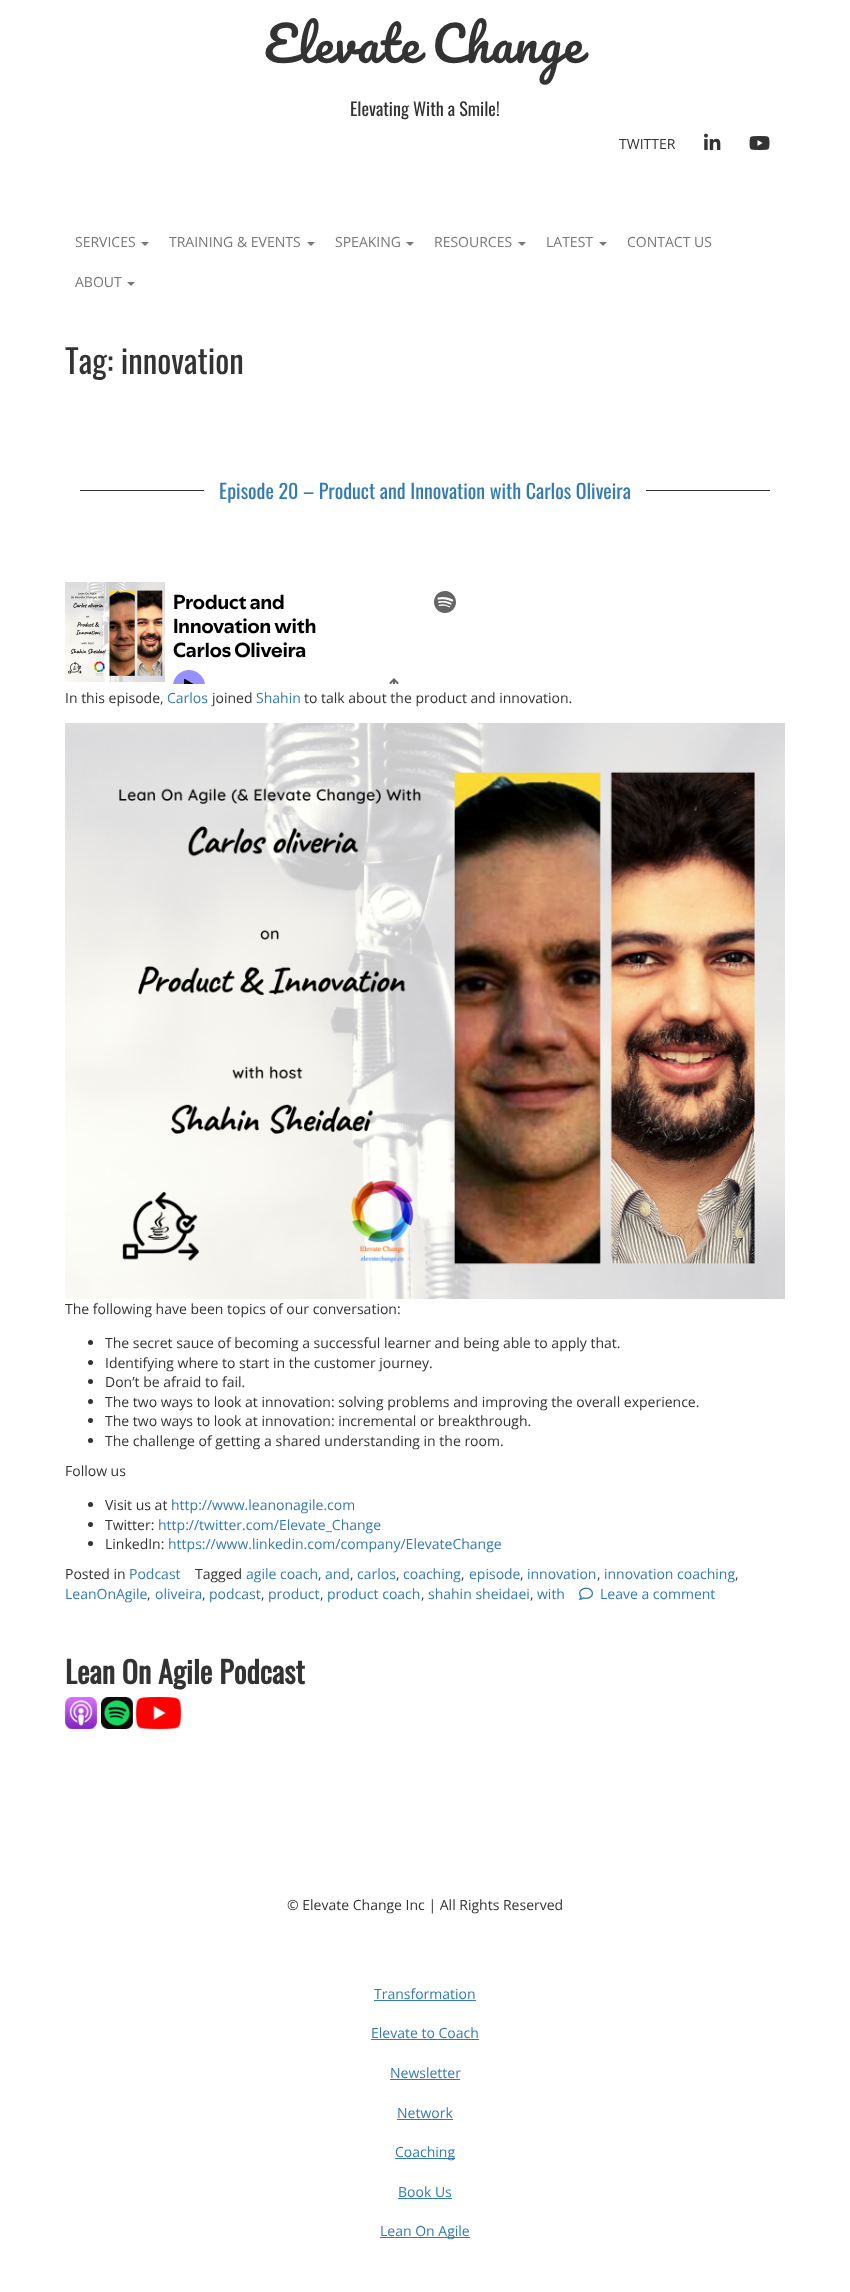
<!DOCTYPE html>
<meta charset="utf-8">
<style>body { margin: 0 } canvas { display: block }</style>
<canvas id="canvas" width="850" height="2292"></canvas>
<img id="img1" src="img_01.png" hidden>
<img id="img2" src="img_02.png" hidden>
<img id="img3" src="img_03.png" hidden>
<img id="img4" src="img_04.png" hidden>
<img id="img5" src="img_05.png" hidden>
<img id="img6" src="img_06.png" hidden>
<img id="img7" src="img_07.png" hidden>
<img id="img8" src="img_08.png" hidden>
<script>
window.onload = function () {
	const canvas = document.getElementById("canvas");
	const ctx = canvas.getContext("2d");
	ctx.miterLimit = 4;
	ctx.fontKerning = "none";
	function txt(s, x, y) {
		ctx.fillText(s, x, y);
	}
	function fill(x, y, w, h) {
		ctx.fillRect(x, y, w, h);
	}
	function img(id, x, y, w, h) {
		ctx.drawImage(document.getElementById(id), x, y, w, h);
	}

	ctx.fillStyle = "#FFFFFF";
	fill(0, 0, 850, 2292);
	img("img1", 704, 133, 17, 17);
	img("img2", 749, 136, 21, 14);
	ctx.fillStyle = "#777777";
	ctx.beginPath();
	ctx.moveTo(141, 242);
	ctx.lineTo(149, 242);
	ctx.lineTo(145, 246);
	ctx.closePath();
	ctx.fill();
	ctx.beginPath();
	ctx.moveTo(307, 242);
	ctx.lineTo(315, 242);
	ctx.lineTo(311, 246);
	ctx.closePath();
	ctx.fill();
	ctx.beginPath();
	ctx.moveTo(406, 242);
	ctx.lineTo(414, 242);
	ctx.lineTo(410, 246);
	ctx.closePath();
	ctx.fill();
	ctx.beginPath();
	ctx.moveTo(518, 242);
	ctx.lineTo(526, 242);
	ctx.lineTo(522, 246);
	ctx.closePath();
	ctx.fill();
	ctx.beginPath();
	ctx.moveTo(599, 242);
	ctx.lineTo(607, 242);
	ctx.lineTo(603, 246);
	ctx.closePath();
	ctx.fill();
	ctx.beginPath();
	ctx.moveTo(127, 282);
	ctx.lineTo(135, 282);
	ctx.lineTo(131, 286);
	ctx.closePath();
	ctx.fill();
	ctx.fillStyle = "#333333";
	fill(80, 490, 690, 1);
	ctx.fillStyle = "#FFFFFF";
	fill(204, 490, 442, 1);
	img("img3", 65, 582, 391, 102);
	img("img4", 65, 723, 720, 576);
	ctx.fillStyle = "#333333";
	ctx.beginPath();
	ctx.arc(90.5, 1342.5, 2.5, 0, Math.PI * 2);
	ctx.fill();
	ctx.beginPath();
	ctx.arc(90.5, 1362.5, 2.5, 0, Math.PI * 2);
	ctx.fill();
	ctx.beginPath();
	ctx.arc(90.5, 1381.5, 2.5, 0, Math.PI * 2);
	ctx.fill();
	ctx.beginPath();
	ctx.arc(90.5, 1401.5, 2.5, 0, Math.PI * 2);
	ctx.fill();
	ctx.beginPath();
	ctx.arc(90.5, 1420.5, 2.5, 0, Math.PI * 2);
	ctx.fill();
	ctx.beginPath();
	ctx.arc(90.5, 1440.5, 2.5, 0, Math.PI * 2);
	ctx.fill();
	ctx.beginPath();
	ctx.arc(90.5, 1504.5, 2.5, 0, Math.PI * 2);
	ctx.fill();
	ctx.beginPath();
	ctx.arc(90.5, 1524.5, 2.5, 0, Math.PI * 2);
	ctx.fill();
	ctx.beginPath();
	ctx.arc(90.5, 1543.5, 2.5, 0, Math.PI * 2);
	ctx.fill();
	img("img5", 579, 1587, 14, 13);
	img("img6", 65, 1697, 32, 32);
	img("img7", 101, 1697, 32, 32);
	img("img8", 136, 1697, 45, 32);
	ctx.fillStyle = "#337AB7";
	fill(374, 2000, 102, 1);
	fill(371, 2039, 108, 1);
	fill(390, 2079, 70, 1);
	fill(397, 2119, 56, 1);
	fill(395, 2158, 60, 1);
	fill(398, 2198, 54, 1);
	fill(380, 2237, 90, 1);
	ctx.letterSpacing = "1px";
	ctx.wordSpacing = "-2px";
	ctx.font = "48px Pacifico";
	ctx.fillStyle = "#333333";
	txt("Elevate Change", 264, 63);
	ctx.letterSpacing = "0px";
	ctx.wordSpacing = "0px";
	ctx.font = "18px Oswald";
	txt("Elevating With a Smile!", 350, 116);
	ctx.font = "14px Open Sans";
	txt("TWITTER", 619, 149);
	ctx.fillStyle = "#777777";
	txt("SERVICES", 75, 247);
	txt("TRAINING & EVENTS", 169, 247);
	txt("SPEAKING", 335, 247);
	txt("RESOURCES", 434, 247);
	txt("LATEST", 546, 247);
	txt("CONTACT US", 627, 247);
	txt("ABOUT", 75, 287);
	ctx.font = "33px Oswald";
	ctx.fillStyle = "#333333";
	txt("Tag: innovation", 65, 374);
	ctx.font = "20px Oswald";
	ctx.fillStyle = "#337AB7";
	txt("Episode 20 – Product and Innovation with Carlos Oliveira", 219, 499);
	ctx.font = "14px Open Sans";
	ctx.fillStyle = "#333333";
	txt("In this episode,", 65, 703);
	ctx.fillStyle = "#337AB7";
	txt("Carlos", 167, 703);
	ctx.fillStyle = "#333333";
	txt("joined", 212, 703);
	ctx.fillStyle = "#337AB7";
	txt("Shahin", 256, 703);
	ctx.fillStyle = "#333333";
	txt("to talk about the product and innovation.", 304, 703);
	txt("The following have been topics of our conversation:", 65, 1314);
	txt("The secret sauce of becoming a successful learner and being able to apply that.", 105, 1348);
	txt("Identifying where to start in the customer journey.", 105, 1368);
	txt("Don’t be afraid to fail.", 105, 1387);
	txt("The two ways to look at innovation: solving problems and improving the overall experience.", 105, 1407);
	txt("The two ways to look at innovation: incremental or breakthrough.", 105, 1426);
	txt("The challenge of getting a shared understanding in the room.", 105, 1446);
	txt("Follow us", 65, 1476);
	txt("Visit us at", 105, 1510);
	ctx.fillStyle = "#337AB7";
	txt("http://www.leanonagile.com", 171, 1510);
	ctx.fillStyle = "#333333";
	txt("Twitter:", 105, 1530);
	ctx.fillStyle = "#337AB7";
	txt("http://twitter.com/Elevate_Change", 158, 1530);
	ctx.fillStyle = "#333333";
	txt("LinkedIn:", 105, 1549);
	ctx.fillStyle = "#337AB7";
	txt("https://www.linkedin.com/company/ElevateChange", 168, 1549);
	ctx.fillStyle = "#333333";
	txt("Posted in", 65, 1579);
	ctx.fillStyle = "#337AB7";
	txt("Podcast", 129, 1579);
	ctx.fillStyle = "#333333";
	txt("Tagged", 195, 1579);
	ctx.fillStyle = "#337AB7";
	txt("agile coach", 246, 1579);
	ctx.fillStyle = "#333333";
	txt(",", 318, 1579);
	ctx.fillStyle = "#337AB7";
	txt("and", 325, 1579);
	ctx.fillStyle = "#333333";
	txt(",", 350, 1579);
	ctx.fillStyle = "#337AB7";
	txt("carlos", 357, 1579);
	ctx.fillStyle = "#333333";
	txt(",", 396, 1579);
	ctx.fillStyle = "#337AB7";
	txt("coaching", 403, 1579);
	ctx.fillStyle = "#333333";
	txt(",", 461, 1579);
	ctx.fillStyle = "#337AB7";
	txt("episode", 469, 1579);
	ctx.fillStyle = "#333333";
	txt(",", 520, 1579);
	ctx.fillStyle = "#337AB7";
	txt("innovation", 527, 1579);
	ctx.fillStyle = "#333333";
	txt(",", 597, 1579);
	ctx.fillStyle = "#337AB7";
	txt("innovation coaching", 604, 1579);
	ctx.fillStyle = "#333333";
	txt(",", 735, 1579);
	ctx.fillStyle = "#337AB7";
	txt("LeanOnAgile", 65, 1599);
	ctx.fillStyle = "#333333";
	txt(",", 147, 1599);
	ctx.fillStyle = "#337AB7";
	txt("oliveira", 155, 1599);
	ctx.fillStyle = "#333333";
	txt(",", 202, 1599);
	ctx.fillStyle = "#337AB7";
	txt("podcast", 209, 1599);
	ctx.fillStyle = "#333333";
	txt(",", 261, 1599);
	ctx.fillStyle = "#337AB7";
	txt("product", 268, 1599);
	ctx.fillStyle = "#333333";
	txt(",", 320, 1599);
	ctx.fillStyle = "#337AB7";
	txt("product coach", 327, 1599);
	ctx.fillStyle = "#333333";
	txt(",", 421, 1599);
	ctx.fillStyle = "#337AB7";
	txt("shahin sheidaei", 428, 1599);
	ctx.fillStyle = "#333333";
	txt(",", 530, 1599);
	ctx.fillStyle = "#337AB7";
	txt("with", 537, 1599);
	txt("Leave a comment", 600, 1599);
	ctx.font = "bold 30px Oswald";
	ctx.fillStyle = "#333333";
	txt("Lean On Agile Podcast", 65, 1684);
	ctx.font = "14px Open Sans";
	txt("© Elevate Change Inc | All Rights Reserved", 287, 1910);
	ctx.fillStyle = "#337AB7";
	txt("Transformation", 374, 1999);
	txt("Elevate to Coach", 371, 2038);
	txt("Newsletter", 390, 2078);
	txt("Network", 397, 2118);
	txt("Coaching", 395, 2157);
	txt("Book Us", 398, 2197);
	txt("Lean On Agile", 380, 2236);
};
</script>
